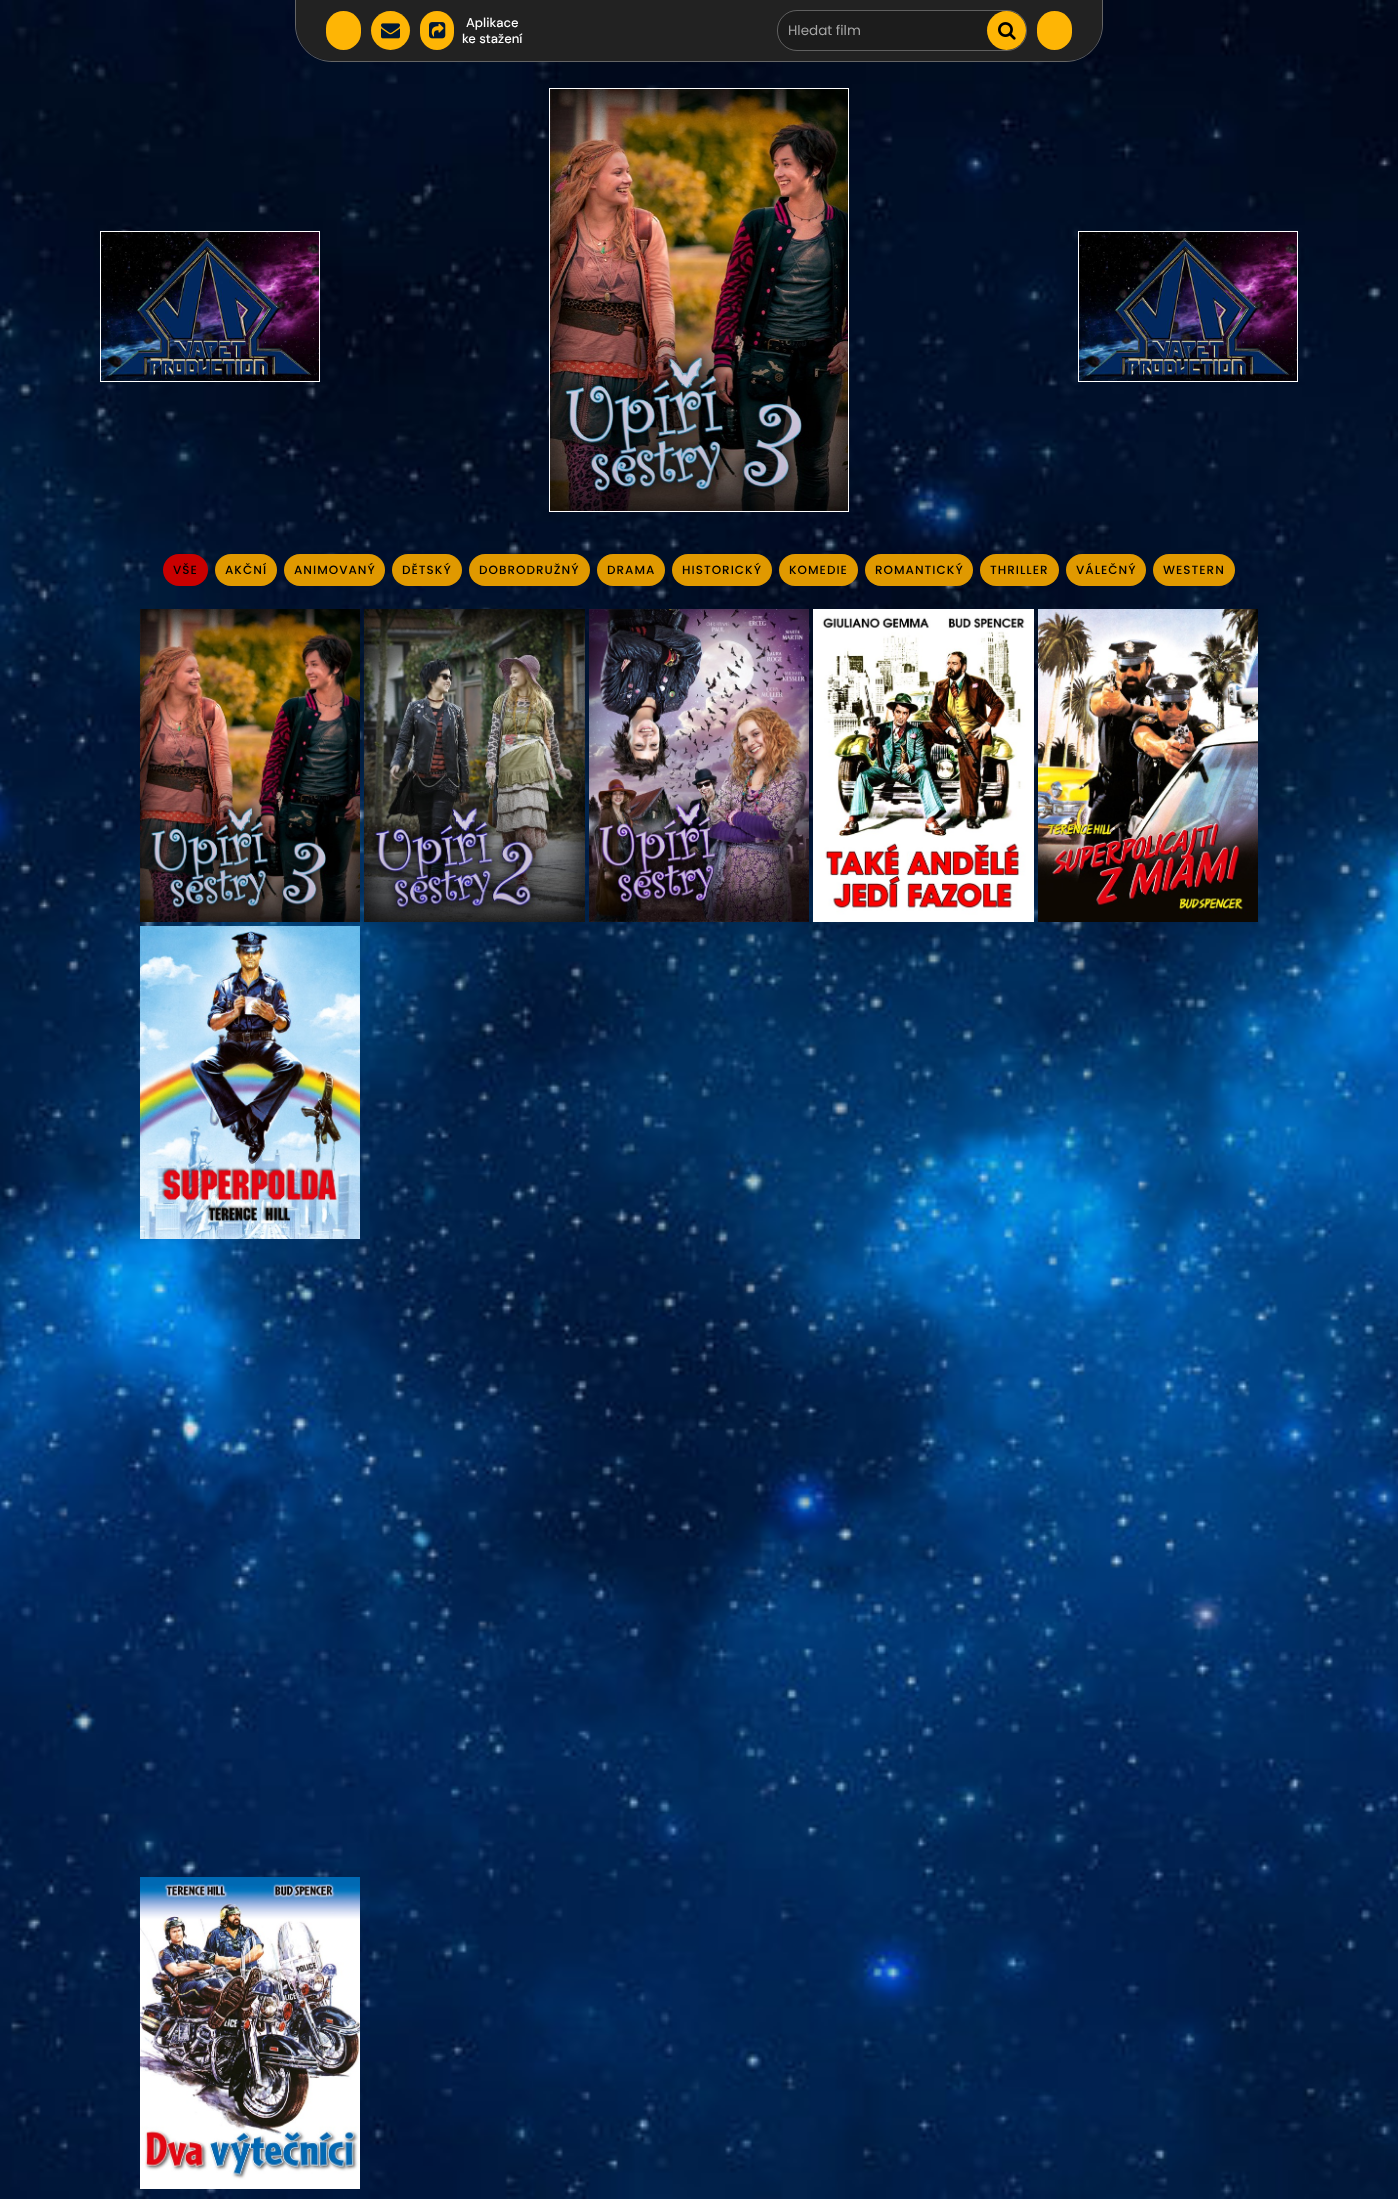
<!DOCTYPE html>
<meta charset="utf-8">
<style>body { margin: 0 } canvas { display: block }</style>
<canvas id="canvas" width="1398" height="2199"></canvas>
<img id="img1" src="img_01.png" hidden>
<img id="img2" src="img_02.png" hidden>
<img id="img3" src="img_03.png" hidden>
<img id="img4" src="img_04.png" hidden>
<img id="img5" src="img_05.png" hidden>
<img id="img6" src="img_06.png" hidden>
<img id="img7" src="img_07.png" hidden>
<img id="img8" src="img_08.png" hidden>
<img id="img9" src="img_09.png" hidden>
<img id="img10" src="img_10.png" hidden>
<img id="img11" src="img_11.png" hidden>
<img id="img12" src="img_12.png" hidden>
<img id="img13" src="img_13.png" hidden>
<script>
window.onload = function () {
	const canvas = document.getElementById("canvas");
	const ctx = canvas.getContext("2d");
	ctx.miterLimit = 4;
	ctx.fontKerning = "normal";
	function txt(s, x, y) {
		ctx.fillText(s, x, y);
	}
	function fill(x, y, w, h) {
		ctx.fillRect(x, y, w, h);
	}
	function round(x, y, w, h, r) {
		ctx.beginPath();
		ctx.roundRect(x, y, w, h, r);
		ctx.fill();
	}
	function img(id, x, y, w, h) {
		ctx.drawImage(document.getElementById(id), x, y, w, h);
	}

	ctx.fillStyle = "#FFFFFF";
	fill(0, 0, 1398, 2199);
	img("img1", 0, 0, 1398, 2199);
	ctx.fillStyle = "#222222";
	ctx.beginPath();
	ctx.roundRect(296, 0, 806, 61, [0, 0, 36, 36]);
	ctx.fill();
	ctx.fillStyle = "#656565";
	ctx.beginPath();
	ctx.moveTo(295, 0);
	ctx.lineTo(1103, 0);
	ctx.lineTo(1103, 25);
	ctx.bezierCurveTo(1103, 45, 1086, 62, 1066, 62);
	ctx.lineTo(332, 62);
	ctx.bezierCurveTo(312, 62, 295, 45, 295, 25);
	ctx.closePath();
	ctx.moveTo(296, 0);
	ctx.lineTo(1102, 0);
	ctx.lineTo(1102, 25);
	ctx.bezierCurveTo(1102, 45, 1086, 61, 1066, 61);
	ctx.lineTo(332, 61);
	ctx.bezierCurveTo(312, 61, 296, 45, 296, 25);
	ctx.closePath();
	ctx.fill("evenodd");
	ctx.fillStyle = "#FEB505";
	round(326, 11, 35, 39, 17.5);
	ctx.beginPath();
	ctx.arc(390.5, 30.5, 19.5, 0, Math.PI * 2);
	ctx.fill();
	img("img2", 381, 23, 19, 16);
	round(420, 11, 34, 39, 17);
	img("img3", 429, 22, 17, 17);
	ctx.fillStyle = "#1C1C1C";
	round(777, 10, 250, 41, 20);
	ctx.beginPath();
	ctx.roundRect(777.5, 10.5, 249, 40, 19.5);
	ctx.strokeStyle = "rgba(255, 255, 255, 0.3)";
	ctx.stroke();
	ctx.fillStyle = "#FEB505";
	ctx.beginPath();
	ctx.arc(1006.5, 30.5, 19.5, 0, Math.PI * 2);
	ctx.fill();
	img("img4", 998, 22, 18, 18);
	round(1037, 11, 35, 39, 17.5);
	ctx.strokeStyle = "#FFFFFF";
	ctx.strokeRect(100.5, 231.5, 219, 150);
	img("img5", 101, 232, 218, 149);
	ctx.strokeRect(549.5, 88.5, 299, 423);
	img("img6", 550, 89, 298, 422);
	ctx.strokeRect(1078.5, 231.5, 219, 150);
	img("img5", 1079, 232, 218, 149);
	ctx.fillStyle = "#C90000";
	round(163, 554, 45, 32, 16);
	ctx.fillStyle = "#E09900";
	round(215, 554, 62, 32, 16);
	round(284, 554, 101, 32, 16);
	round(392, 554, 70, 32, 16);
	round(469, 554, 121, 32, 16);
	round(597, 554, 68, 32, 16);
	round(672, 554, 100, 32, 16);
	round(779, 554, 79, 32, 16);
	round(865, 554, 108, 32, 16);
	round(980, 554, 79, 32, 16);
	round(1066, 554, 80, 32, 16);
	round(1153, 554, 82, 32, 16);
	img("img7", 140, 609, 220, 313);
	img("img8", 364, 609, 221, 313);
	img("img9", 589, 609, 220, 313);
	img("img10", 813, 609, 221, 313);
	img("img11", 1038, 609, 220, 313);
	img("img12", 140, 926, 220, 313);
	img("img13", 140, 1877, 220, 312);
	ctx.font = "500 13px DM Sans";
	ctx.fillStyle = "#FFFFFF";
	txt("Aplikace", 466, 27);
	txt("ke stažení", 462, 43);
	ctx.font = "13.5px Poppins";
	ctx.fillStyle = "#A6A6A6";
	txt("Hledat film", 788, 35);
	ctx.letterSpacing = "1px";
	ctx.font = "500 12px Poppins";
	ctx.fillStyle = "#000000";
	txt("VŠE", 173, 574);
	txt("AKČNÍ", 225, 574);
	txt("ANIMOVANÝ", 294, 574);
	txt("DĚTSKÝ", 402, 574);
	txt("DOBRODRUŽNÝ", 479, 574);
	txt("DRAMA", 607, 574);
	txt("HISTORICKÝ", 682, 574);
	txt("KOMEDIE", 789, 574);
	txt("ROMANTICKÝ", 875, 574);
	txt("THRILLER", 990, 574);
	txt("VÁLEČNÝ", 1076, 574);
	txt("WESTERN", 1163, 574);
};
</script>
